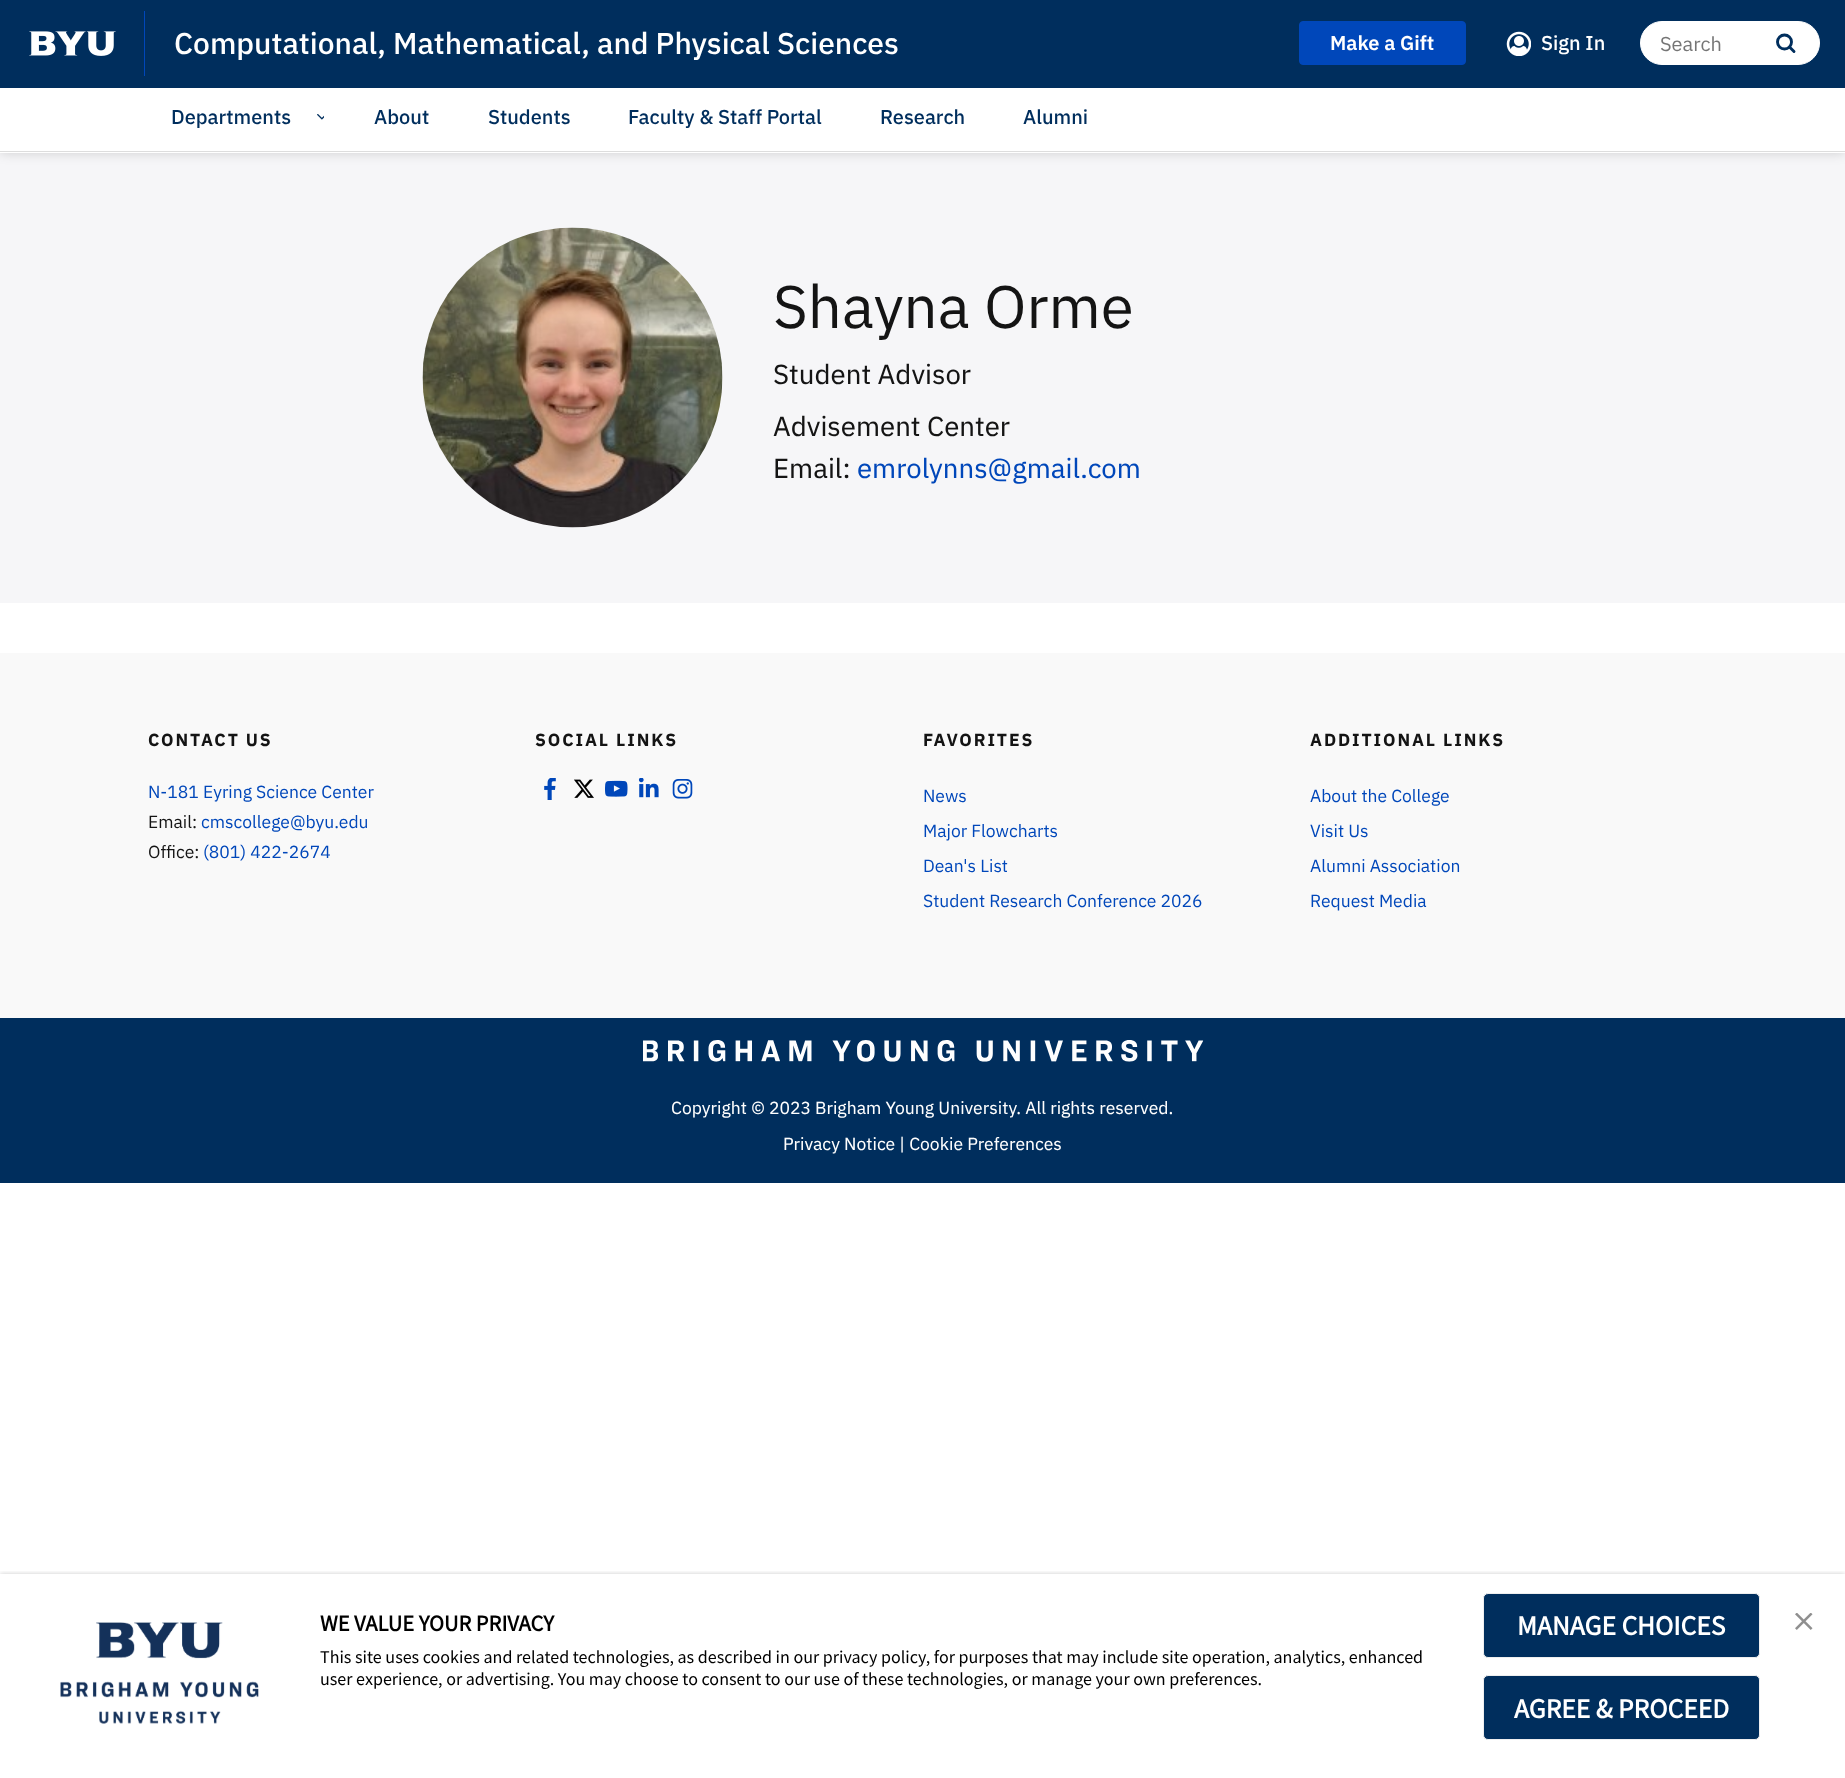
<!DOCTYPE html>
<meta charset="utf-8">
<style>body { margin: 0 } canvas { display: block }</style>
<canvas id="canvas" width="1845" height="1778"></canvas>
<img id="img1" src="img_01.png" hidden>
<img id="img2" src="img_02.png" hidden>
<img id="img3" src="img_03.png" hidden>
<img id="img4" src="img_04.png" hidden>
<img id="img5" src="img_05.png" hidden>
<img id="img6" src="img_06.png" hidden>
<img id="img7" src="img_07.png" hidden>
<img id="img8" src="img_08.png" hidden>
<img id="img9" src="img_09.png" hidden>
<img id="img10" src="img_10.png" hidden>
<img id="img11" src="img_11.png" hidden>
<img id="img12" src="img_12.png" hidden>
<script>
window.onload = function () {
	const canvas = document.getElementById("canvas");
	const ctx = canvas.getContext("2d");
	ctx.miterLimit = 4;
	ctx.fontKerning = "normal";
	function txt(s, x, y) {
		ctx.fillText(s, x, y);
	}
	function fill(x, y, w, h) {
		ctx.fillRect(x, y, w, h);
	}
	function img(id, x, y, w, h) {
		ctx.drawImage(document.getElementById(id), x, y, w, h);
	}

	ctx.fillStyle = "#FFFFFF";
	fill(0, 0, 1845, 1778);
	ctx.fillStyle = "#F6F6F8";
	fill(0, 153, 1845, 450);
	ctx.save();
	ctx.beginPath();
	ctx.moveTo(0, 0);
	ctx.lineTo(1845, 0);
	ctx.lineTo(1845, 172);
	ctx.lineTo(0, 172);
	ctx.closePath();
	ctx.moveTo(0, 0);
	ctx.lineTo(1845, 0);
	ctx.lineTo(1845, 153);
	ctx.lineTo(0, 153);
	ctx.closePath();
	ctx.clip("evenodd");
	ctx.fillStyle = "rgba(0, 0, 0, 0.16)";
	ctx.filter = "blur(6px)";
	ctx.beginPath();
	ctx.rect(0, 0, 1845, 153);
	ctx.fill();
	ctx.filter = "none";
	ctx.restore();
	ctx.fillStyle = "#DDDDDD";
	fill(0, 151, 1845, 1);
	ctx.fillStyle = "#002E5D";
	fill(0, 0, 1845, 88);
	img("img1", 29, 31, 87, 25);
	ctx.fillStyle = "#0047BA";
	fill(144, 11, 1, 65);
	ctx.beginPath();
	ctx.roundRect(1299.5, 21.5, 166, 43, 3.5);
	ctx.fill();
	ctx.strokeStyle = "#0047BA";
	ctx.stroke();
	img("img2", 1506, 31, 25, 25);
	ctx.fillStyle = "#FFFFFF";
	ctx.beginPath();
	ctx.roundRect(1640.5, 21.5, 179, 43, 21.5);
	ctx.fill();
	ctx.strokeStyle = "#FFFFFF";
	ctx.stroke();
	ctx.beginPath();
	ctx.arc(1784.5, 42, 7, 0, Math.PI * 2);
	ctx.strokeStyle = "#002E5D";
	ctx.lineWidth = 2.9;
	ctx.stroke();
	ctx.beginPath();
	ctx.moveTo(1789.5, 47);
	ctx.lineTo(1794, 51.5);
	ctx.lineCap = "round";
	ctx.stroke();
	img("img3", 317, 114, 7, 6);
	img("img4", 422, 227, 301, 301);
	ctx.fillStyle = "#F9F9F9";
	fill(0, 653, 1845, 365);
	img("img5", 544, 778, 12, 22);
	img("img6", 574, 779, 20, 19);
	img("img7", 605, 780, 23, 17);
	img("img8", 638, 778, 21, 20);
	img("img9", 672, 779, 21, 20);
	ctx.fillStyle = "#002E5D";
	fill(0, 1018, 1845, 165);
	img("img10", 643, 1040, 561, 22);
	ctx.save();
	ctx.beginPath();
	ctx.rect(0, 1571, 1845, 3);
	ctx.clip();
	ctx.fillStyle = "rgba(0, 0, 0, 0.2)";
	ctx.filter = "blur(2.5px)";
	ctx.beginPath();
	ctx.rect(0, 1574, 1845, 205);
	ctx.fill();
	ctx.filter = "none";
	ctx.restore();
	img("img11", 60, 1622, 199, 102);
	img("img12", 1795, 1613, 18, 17);
	ctx.beginPath();
	ctx.roundRect(1483.5, 1593.5, 276, 64, 4.5);
	ctx.fill();
	ctx.strokeStyle = "#EEEEEE";
	ctx.lineWidth = 1;
	ctx.stroke();
	ctx.beginPath();
	ctx.roundRect(1483.5, 1675.5, 276, 64, 4.5);
	ctx.fill();
	ctx.stroke();
	ctx.font = "500 30px IBM Plex Sans";
	ctx.fillStyle = "#FFFFFF";
	txt("Computational, Mathematical, and Physical Sciences", 174, 54);
	ctx.font = "600 20px IBM Plex Sans";
	txt("Make a Gift", 1330, 50);
	ctx.font = "500 20px IBM Plex Sans";
	txt("Sign In", 1541, 50);
	ctx.font = "20px IBM Plex Sans";
	ctx.fillStyle = "#757575";
	txt("Search", 1660, 51);
	ctx.font = "500 20px IBM Plex Sans";
	ctx.fillStyle = "#002E5D";
	txt("Departments", 171, 124);
	txt("About", 374, 124);
	txt("Students", 488, 124);
	txt("Faculty & Staff Portal", 628, 124);
	txt("Research", 880, 124);
	txt("Alumni", 1023, 124);
	ctx.font = "60px IBM Plex Sans";
	ctx.fillStyle = "#141414";
	txt("Shayna Orme", 773, 328);
	ctx.font = "27.5px 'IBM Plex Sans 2'";
	txt("Student Advisor", 773, 384);
	txt("Advisement Center", 773, 436);
	txt("Email:", 773, 478);
	ctx.fillStyle = "#0047BA";
	txt("emrolynns@gmail.com", 857, 478);
	ctx.letterSpacing = "1.9px";
	ctx.font = "bold 17.5px IBM Plex Sans";
	ctx.fillStyle = "#141414";
	txt("CONTACT US", 148, 746);
	ctx.letterSpacing = "0px";
	ctx.font = "17.5px IBM Plex Sans";
	ctx.fillStyle = "#0047BA";
	txt("N-181 Eyring Science Center", 148, 798);
	ctx.fillStyle = "#141414";
	txt("Email:", 148, 828);
	ctx.fillStyle = "#0047BA";
	txt("cmscollege@byu.edu", 201, 828);
	ctx.fillStyle = "#141414";
	txt("Office:", 148, 858);
	ctx.fillStyle = "#0047BA";
	txt("(801) 422-2674", 203, 858);
	ctx.letterSpacing = "1.9px";
	ctx.font = "bold 17.5px IBM Plex Sans";
	ctx.fillStyle = "#141414";
	txt("SOCIAL LINKS", 535, 746);
	txt("FAVORITES", 923, 746);
	ctx.letterSpacing = "0px";
	ctx.font = "17.5px IBM Plex Sans";
	ctx.fillStyle = "#0047BA";
	txt("News", 923, 802);
	txt("Major Flowcharts", 923, 837);
	txt("Dean's List", 923, 872);
	txt("Student Research Conference 2026", 923, 907);
	ctx.letterSpacing = "1.9px";
	ctx.font = "bold 17.5px IBM Plex Sans";
	ctx.fillStyle = "#141414";
	txt("ADDITIONAL LINKS", 1310, 746);
	ctx.letterSpacing = "0px";
	ctx.font = "17.5px IBM Plex Sans";
	ctx.fillStyle = "#0047BA";
	txt("About the College", 1310, 802);
	txt("Visit Us", 1310, 837);
	txt("Alumni Association", 1310, 872);
	txt("Request Media", 1310, 907);
	ctx.font = "17.5px 'IBM Plex Sans 2'";
	ctx.fillStyle = "#FFFFFF";
	txt("Copyright © 2023 Brigham Young University. All rights reserved.", 671, 1114);
	txt("Privacy Notice | Cookie Preferences", 783, 1150);
	ctx.font = "bold 22.5px Source Sans Pro";
	ctx.fillStyle = "#000000";
	txt("WE VALUE YOUR PRIVACY", 320, 1631);
	ctx.font = "18px Source Sans Pro";
	txt("This site uses cookies and related technologies, as described in our privacy policy, for purposes that may include site operation, analytics, enhanced", 320, 1663);
	txt("user experience, or advertising. You may choose to consent to our use of these technologies, or manage your own preferences.", 320, 1685);
	ctx.font = "bold 27.5px Source Sans Pro";
	ctx.fillStyle = "#FFFFFF";
	txt("MANAGE CHOICES", 1517, 1635);
	txt("AGREE & PROCEED", 1514, 1718);
};
</script>
